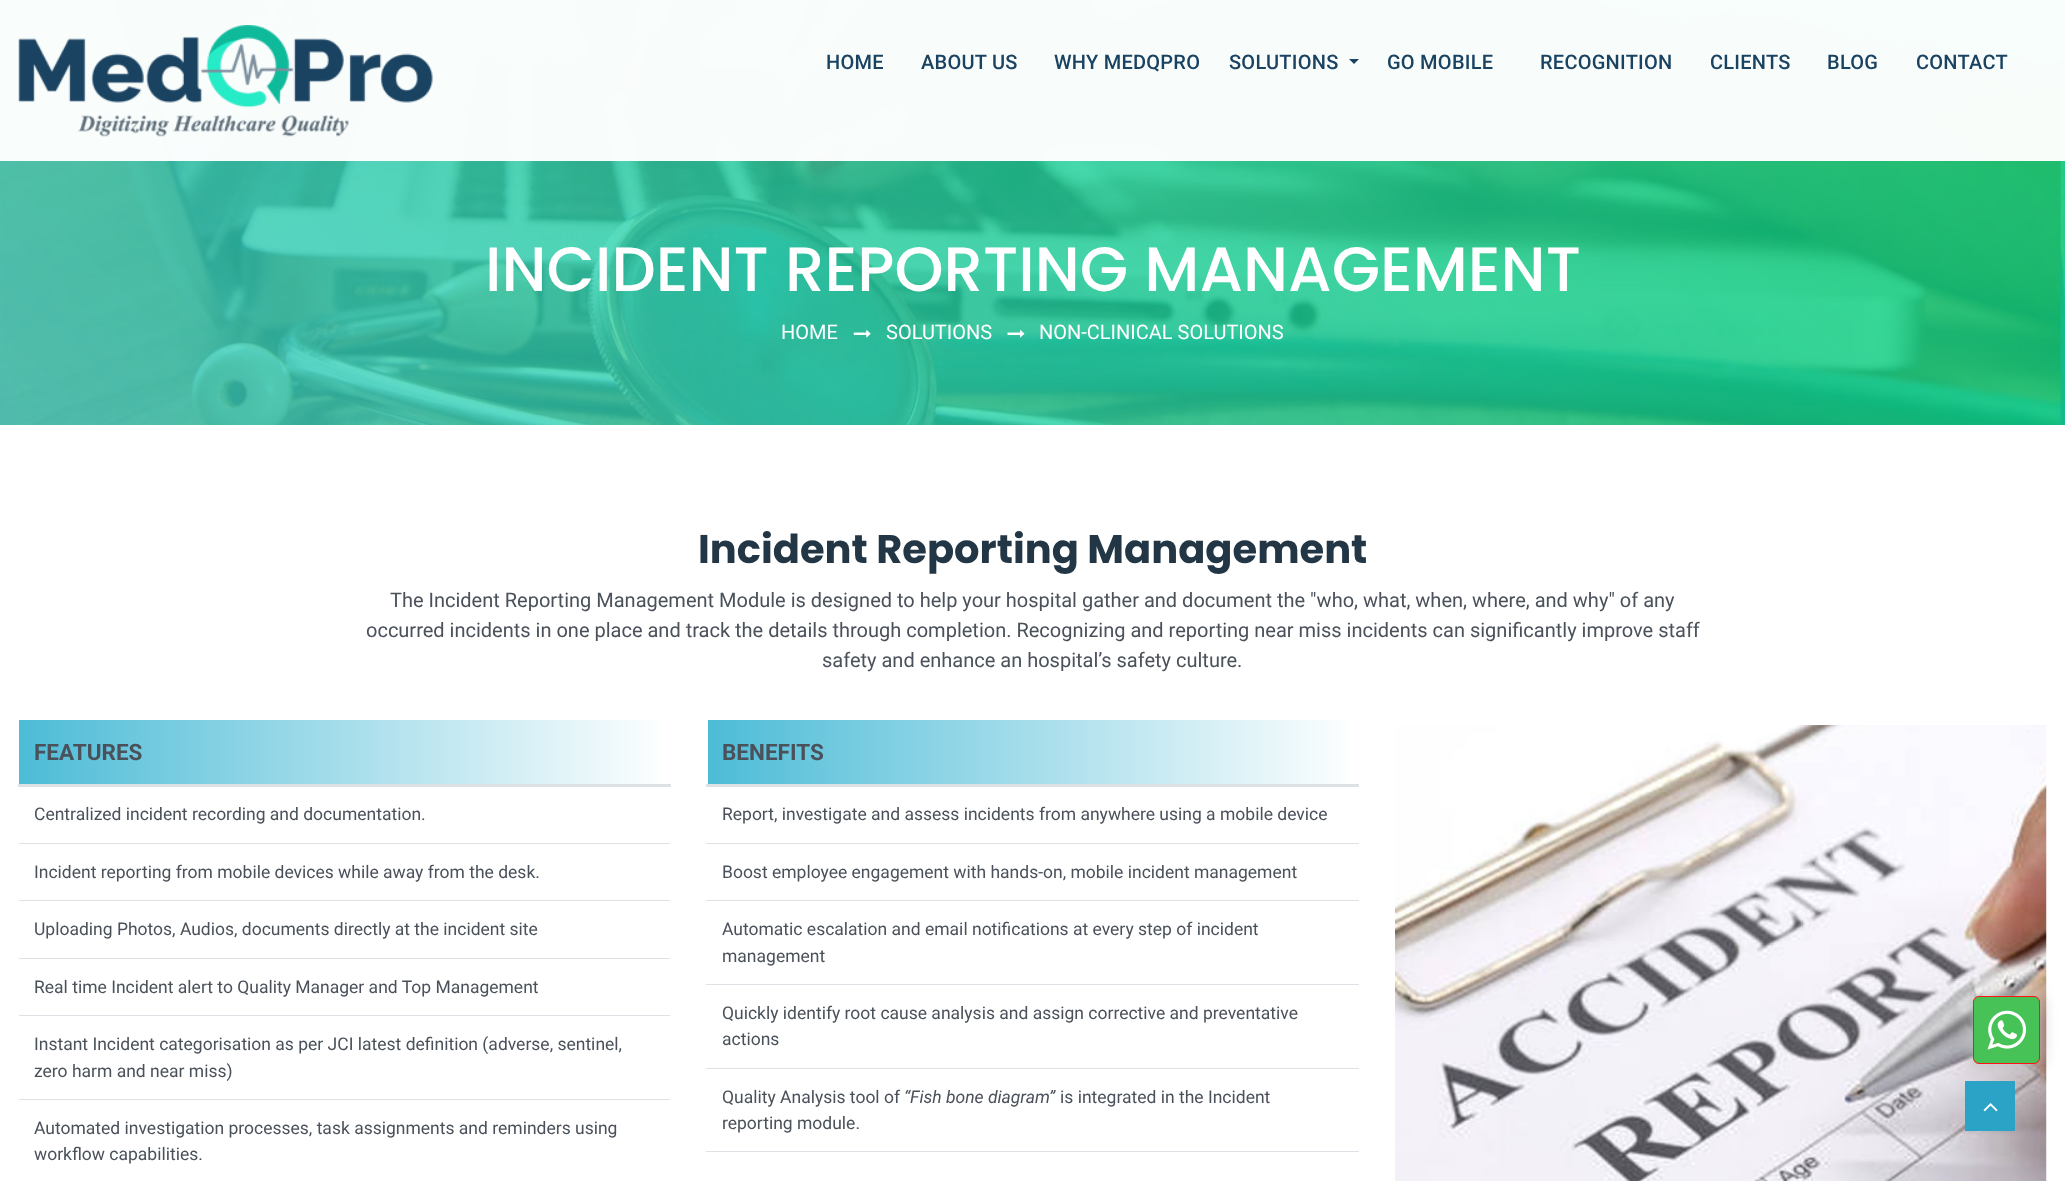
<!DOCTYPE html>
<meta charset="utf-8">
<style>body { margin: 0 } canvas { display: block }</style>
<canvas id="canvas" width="2065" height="1181"></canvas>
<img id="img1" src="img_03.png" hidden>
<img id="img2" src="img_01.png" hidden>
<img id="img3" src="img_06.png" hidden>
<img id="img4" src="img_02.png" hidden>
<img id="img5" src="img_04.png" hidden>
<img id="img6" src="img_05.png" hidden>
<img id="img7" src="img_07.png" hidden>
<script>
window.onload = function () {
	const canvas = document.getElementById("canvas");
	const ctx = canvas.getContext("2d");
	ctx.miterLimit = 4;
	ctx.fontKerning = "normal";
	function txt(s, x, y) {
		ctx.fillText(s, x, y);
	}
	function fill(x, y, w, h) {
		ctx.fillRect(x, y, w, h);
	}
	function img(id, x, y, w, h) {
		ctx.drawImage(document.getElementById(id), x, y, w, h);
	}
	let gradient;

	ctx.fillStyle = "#FFFFFF";
	fill(0, 0, 2065, 1181);
	img("img1", 0, 0, 2065, 425);
	ctx.fillStyle = "rgba(255, 255, 255, 0.97)";
	fill(0, 0, 2065, 161);
	img("img2", 18, 25, 415, 112);
	ctx.fillStyle = "#1A4261";
	ctx.beginPath();
	ctx.moveTo(1349, 59);
	ctx.lineTo(1359, 59);
	ctx.lineTo(1354, 64);
	ctx.closePath();
	ctx.fill();
	img("img3", 1395, 725, 652, 456);
	ctx.fillStyle = "#2BA3C6";
	fill(1965, 1081, 50, 50);
	ctx.fillStyle = "#C1C1C1";
	ctx.filter = "blur(8px)";
	ctx.beginPath();
	ctx.roundRect(1971, 995, 70, 70, 8);
	ctx.fill();
	ctx.filter = "none";
	ctx.fillStyle = "#46C256";
	ctx.beginPath();
	ctx.roundRect(1973.5, 996.5, 66, 67, 5.5);
	ctx.fill();
	ctx.strokeStyle = "#FF1313";
	ctx.stroke();
	img("img4", 1987, 1010, 40, 40);
	img("img5", 853, 330, 18, 8);
	img("img6", 1007, 330, 18, 8);
	gradient = ctx.createLinearGradient(19, 751, 670, 751);
	gradient.addColorStop(0, "#4DBCD7");
	gradient.addColorStop(1, "#FFFFFF");
	ctx.fillStyle = gradient;
	fill(19, 720, 642, 64);
	ctx.fillStyle = "#DEE2E6";
	fill(18, 784, 653, 3);
	fill(19, 843, 651, 1);
	fill(19, 900, 651, 1);
	fill(19, 958, 651, 1);
	fill(19, 1015, 651, 1);
	fill(19, 1099, 651, 1);
	gradient = ctx.createLinearGradient(708, 751, 1358, 751);
	gradient.addColorStop(0, "#4DBCD7");
	gradient.addColorStop(1, "#FFFFFF");
	ctx.fillStyle = gradient;
	fill(708, 720, 641, 64);
	ctx.fillStyle = "#DEE2E6";
	fill(706, 784, 653, 3);
	fill(706, 843, 653, 1);
	fill(706, 900, 653, 1);
	fill(706, 984, 653, 1);
	fill(706, 1068, 653, 1);
	fill(706, 1151, 653, 1);
	img("img7", 1983, 1103, 15, 9);
	ctx.letterSpacing = "0.25px";
	ctx.font = "500 20px Roboto";
	ctx.fillStyle = "#1A4261";
	txt("HOME", 826, 69);
	txt("ABOUT US", 921, 69);
	txt("WHY MEDQPRO", 1054, 69);
	txt("SOLUTIONS", 1229, 69);
	txt("GO MOBILE", 1387, 69);
	txt("RECOGNITION", 1540, 69);
	txt("CLIENTS", 1710, 69);
	txt("BLOG", 1827, 69);
	txt("CONTACT", 1916, 69);
	ctx.letterSpacing = "0px";
	ctx.font = "500 62.5px Poppins";
	ctx.fillStyle = "#FFFFFF";
	txt("INCIDENT REPORTING MANAGEMENT", 485, 291);
	ctx.font = "20px Roboto";
	txt("HOME", 781, 339);
	txt("SOLUTIONS", 886, 339);
	txt("NON-CLINICAL SOLUTIONS", 1039, 339);
	ctx.font = "bold 40px Poppins";
	ctx.fillStyle = "#223645";
	txt("Incident Reporting Management", 698, 563);
	ctx.font = "20px Roboto";
	ctx.fillStyle = "#4A515A";
	txt("The Incident Reporting Management Module is designed to help your hospital gather and document the \"who, what, when, where, and why\" of any", 390, 607);
	txt("occurred incidents in one place and track the details through completion. Recognizing and reporting near miss incidents can significantly improve staff", 366, 637);
	txt("safety and enhance an hospital’s safety culture.", 822, 667);
	ctx.font = "bold 22.5px Roboto";
	txt("FEATURES", 34, 760);
	ctx.font = "17.5px Roboto";
	txt("Centralized incident recording and documentation.", 34, 820);
	txt("Incident reporting from mobile devices while away from the desk.", 34, 878);
	txt("Uploading Photos, Audios, documents directly at the incident site", 34, 935);
	txt("Real time Incident alert to Quality Manager and Top Management", 34, 993);
	txt("Instant Incident categorisation as per JCI latest definition (adverse, sentinel,", 34, 1050);
	txt("zero harm and near miss)", 34, 1077);
	txt("Automated investigation processes, task assignments and reminders using", 34, 1134);
	txt("workflow capabilities.", 34, 1160);
	ctx.font = "bold 22.5px Roboto";
	txt("BENEFITS", 722, 760);
	ctx.font = "17.5px Roboto";
	txt("Report, investigate and assess incidents from anywhere using a mobile device", 722, 820);
	txt("Boost employee engagement with hands-on, mobile incident management", 722, 878);
	txt("Automatic escalation and email notifications at every step of incident", 722, 935);
	txt("management", 722, 962);
	txt("Quickly identify root cause analysis and assign corrective and preventative", 722, 1019);
	txt("actions", 722, 1045);
	txt("Quality Analysis tool of", 722, 1103);
	ctx.font = "italic 17.5px Roboto";
	txt("“Fish bone diagram”", 904, 1103);
	ctx.font = "17.5px Roboto";
	txt("is integrated in the Incident", 1060, 1103);
	txt("reporting module.", 722, 1129);
};
</script>
